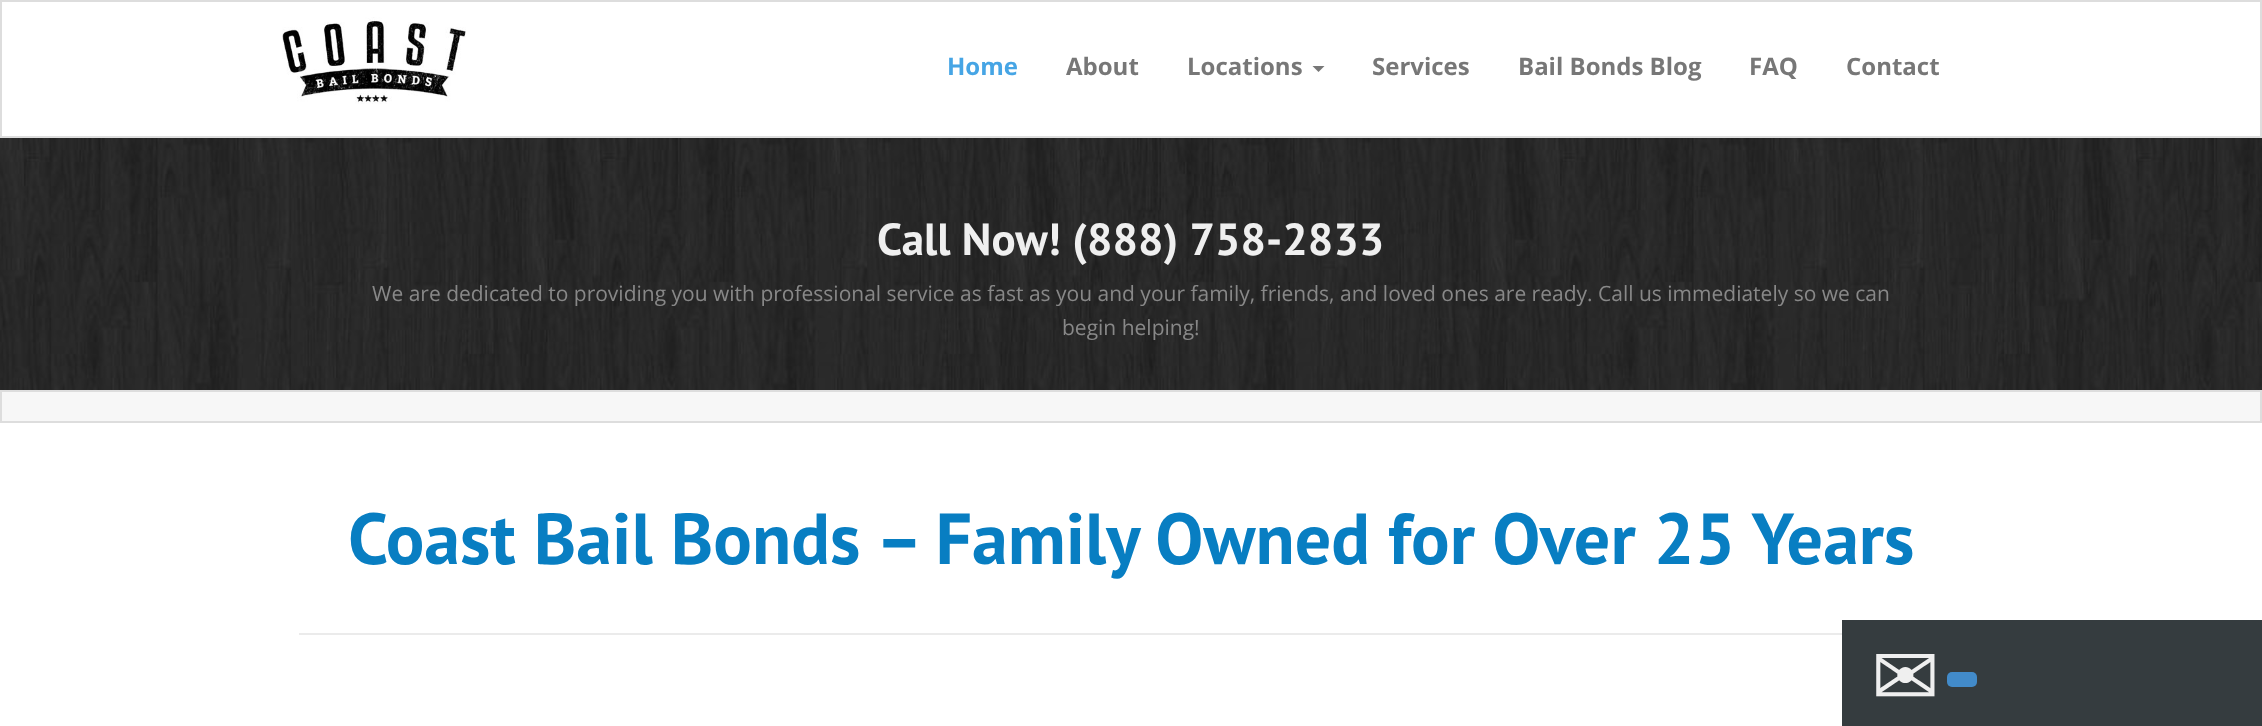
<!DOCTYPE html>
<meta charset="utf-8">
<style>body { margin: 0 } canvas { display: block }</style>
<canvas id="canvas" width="2262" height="726"></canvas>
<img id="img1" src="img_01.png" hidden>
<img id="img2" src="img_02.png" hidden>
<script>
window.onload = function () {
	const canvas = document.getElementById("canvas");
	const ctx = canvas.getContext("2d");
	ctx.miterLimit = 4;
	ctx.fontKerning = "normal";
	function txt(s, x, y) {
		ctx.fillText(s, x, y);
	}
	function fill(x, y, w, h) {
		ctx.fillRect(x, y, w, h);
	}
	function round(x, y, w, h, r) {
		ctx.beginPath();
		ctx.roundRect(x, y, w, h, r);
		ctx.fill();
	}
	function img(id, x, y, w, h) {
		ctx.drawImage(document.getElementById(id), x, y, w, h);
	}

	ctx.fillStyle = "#FFFFFF";
	fill(0, 0, 2262, 726);
	ctx.strokeStyle = "#DDDDDD";
	ctx.lineWidth = 2;
	ctx.strokeRect(1, 1, 2260, 136);
	img("img1", 282, 17, 184, 87);
	ctx.fillStyle = "#777777";
	ctx.beginPath();
	ctx.moveTo(1312.5, 66);
	ctx.lineTo(1324.5, 66);
	ctx.lineTo(1318.5, 72);
	ctx.closePath();
	ctx.fill();
	img("img2", 0, 138, 2262, 252);
	ctx.fillStyle = "#F7F7F7";
	ctx.beginPath();
	ctx.rect(1, 391, 2260, 31);
	ctx.fill();
	ctx.stroke();
	ctx.fillStyle = "#EBEBEB";
	fill(299, 633, 1543, 2);
	ctx.fillStyle = "#353C3F";
	fill(1842, 620, 420, 106);
	ctx.fillStyle = "#428BCA";
	round(1947, 672, 30, 15, 5);
	ctx.font = "bold 24px Open Sans";
	ctx.fillStyle = "#46A5E5";
	txt("Home", 947, 75);
	ctx.fillStyle = "#777777";
	txt("About", 1066, 75);
	txt("Locations", 1187, 75);
	txt("Services", 1372, 75);
	txt("Bail Bonds Blog", 1518, 75);
	txt("FAQ", 1749, 75);
	txt("Contact", 1846, 75);
	ctx.font = "bold 45px PT Sans";
	ctx.fillStyle = "#EFEFEF";
	txt("Call Now! (888) 758-2833", 877, 255);
	ctx.font = "21px Open Sans";
	ctx.fillStyle = "#888888";
	txt("We are dedicated to providing you with professional service as fast as you and your family, friends, and loved ones are ready. Call us immediately so we can", 372, 301);
	txt("begin helping!", 1062, 335);
	ctx.font = "bold 72px PT Sans";
	ctx.fillStyle = "#087EC2";
	txt("Coast Bail Bonds – Family Owned for Over 25 Years", 348, 564);
	ctx.font = "82px DejaVu Sans";
	ctx.fillStyle = "#EFEFEF";
	txt("✉", 1871, 705);
};
</script>
